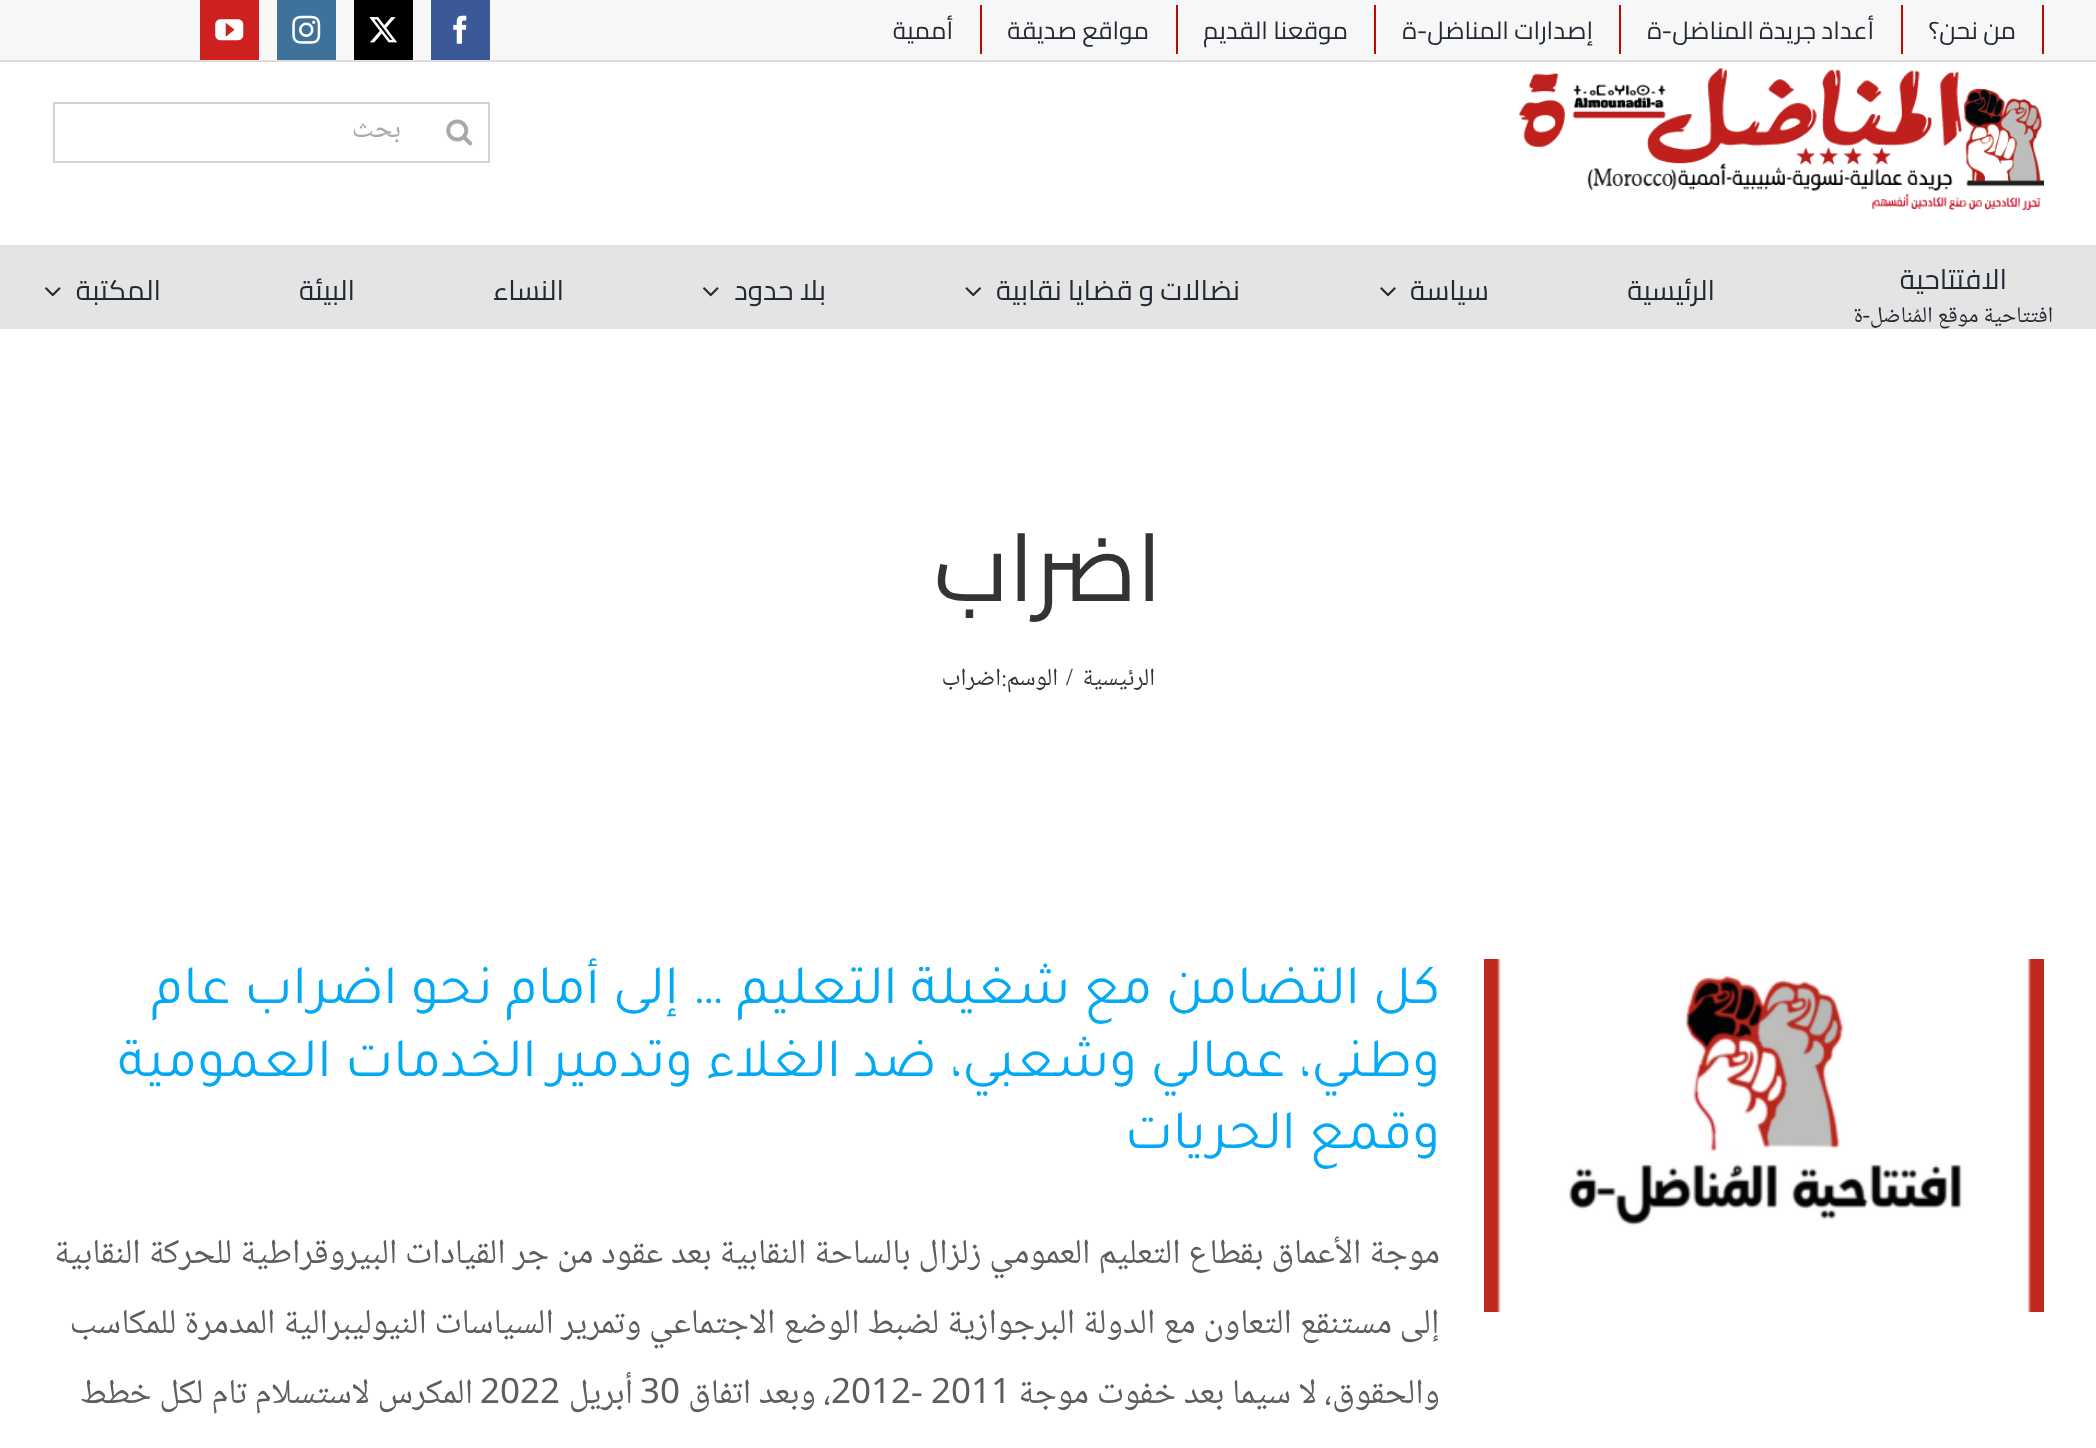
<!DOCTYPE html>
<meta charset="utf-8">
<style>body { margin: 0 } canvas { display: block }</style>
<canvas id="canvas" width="2096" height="1448"></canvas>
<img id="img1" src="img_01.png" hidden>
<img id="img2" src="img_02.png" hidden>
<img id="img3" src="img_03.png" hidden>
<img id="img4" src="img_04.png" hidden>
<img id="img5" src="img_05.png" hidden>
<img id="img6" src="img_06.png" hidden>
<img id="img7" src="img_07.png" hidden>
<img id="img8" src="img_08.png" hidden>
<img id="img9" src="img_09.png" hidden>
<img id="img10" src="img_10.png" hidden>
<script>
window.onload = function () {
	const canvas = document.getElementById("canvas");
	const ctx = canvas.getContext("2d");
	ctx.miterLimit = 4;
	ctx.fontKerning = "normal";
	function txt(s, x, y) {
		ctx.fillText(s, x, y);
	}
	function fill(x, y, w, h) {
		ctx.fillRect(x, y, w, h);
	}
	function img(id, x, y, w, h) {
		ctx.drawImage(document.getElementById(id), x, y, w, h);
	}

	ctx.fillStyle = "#FFFFFF";
	fill(0, 0, 2096, 1448);
	ctx.fillStyle = "#F7F7F7";
	fill(0, 0, 2096, 60);
	ctx.fillStyle = "#DDDDDD";
	fill(0, 60, 2096, 2);
	ctx.fillStyle = "#B70C00";
	fill(2042, 5, 2, 49);
	fill(1901, 5, 2, 49);
	fill(1619, 5, 2, 49);
	fill(1374, 5, 2, 49);
	fill(1176, 5, 2, 49);
	fill(980, 5, 2, 49);
	ctx.fillStyle = "#3B5998";
	fill(431, 0, 59, 60);
	img("img1", 453, 15, 14, 29);
	ctx.fillStyle = "#000000";
	fill(354, 0, 59, 60);
	img("img2", 369, 17, 29, 26);
	ctx.fillStyle = "#3F729B";
	fill(277, 0, 59, 60);
	img("img3", 292, 15, 29, 29);
	ctx.fillStyle = "#CD201F";
	fill(200, 0, 59, 60);
	img("img4", 215, 19, 29, 22);
	img("img5", 1519, 68, 525, 142);
	ctx.strokeStyle = "#D2D2D2";
	ctx.lineWidth = 2;
	ctx.strokeRect(54, 103, 435, 59);
	img("img6", 446, 119, 27, 27);
	ctx.fillStyle = "#E4E4E4";
	fill(0, 245, 2096, 84);
	img("img7", 1380, 287, 16, 10);
	img("img8", 965, 287, 16, 10);
	img("img9", 703, 287, 16, 10);
	img("img9", 45, 287, 16, 10);
	img("img10", 1484, 959, 560, 353);
	ctx.direction = "rtl";
	ctx.font = "24.5px Cairo";
	ctx.fillStyle = "#212934";
	txt("من نحن؟", 2016, 39);
	txt("أعداد جريدة المناضل-ة", 1874, 39);
	txt("إصدارات المناضل-ة", 1593, 39);
	txt("موقعنا القديم", 1348, 39);
	txt("مواقع صديقة", 1149, 39);
	txt("أممية", 953, 39);
	ctx.font = "28px Noto Naskh Arabic";
	ctx.fillStyle = "#AAA9A9";
	txt("بحث", 401, 137);
	ctx.font = "28px Cairo";
	ctx.fillStyle = "#212934";
	txt("الافتتاحية", 2007, 289);
	ctx.font = "22.5px Noto Naskh Arabic";
	txt("افتتاحية موقع المُناضل", 2053, 322);
	ctx.font = "22.5px Liberation Serif";
	txt("-", 1870, 322);
	ctx.font = "22.5px Noto Naskh Arabic";
	txt("ة", 1863, 322);
	ctx.font = "28px Cairo";
	txt("الرئيسية", 1715, 300);
	txt("سياسة", 1489, 300);
	txt("نضالات و قضايا نقابية", 1240, 300);
	txt("بلا حدود", 826, 300);
	txt("النساء", 564, 300);
	txt("البيئة", 355, 300);
	txt("المكتبة", 161, 300);
	ctx.font = "94.5px Cairo";
	ctx.fillStyle = "#333333";
	txt("اضراب", 1162, 601);
	ctx.font = "24.5px Noto Naskh Arabic";
	txt("الرئيسية", 1155, 685);
	ctx.direction = "ltr";
	ctx.font = "24.5px Liberation Serif";
	txt("/", 1066, 685);
	ctx.direction = "rtl";
	ctx.font = "24.5px Noto Naskh Arabic";
	txt("الوسم:", 1058, 685);
	txt("اضراب", 1001, 685);
	ctx.font = "56px Tajawal";
	ctx.fillStyle = "#03A9F4";
	txt("كل التضامن مع شغيلة التعليم … إلى أمام نحو اضراب عام", 1440, 1003);
	txt("وطني، عمالي وشعبي، ضد الغلاء وتدمير الخدمات العمومية", 1440, 1076);
	txt("وقمع الحريات", 1440, 1148);
	ctx.font = "35px Noto Naskh Arabic";
	ctx.fillStyle = "#5D5D5D";
	txt("موجة الأعماق بقطاع التعليم العمومي زلزال بالساحة النقابية بعد عقود من جر القيادات البيروقراطية للحركة النقابية", 1440, 1263);
	txt("إلى مستنقع التعاون مع الدولة البرجوازية لضبط الوضع الاجتماعي وتمرير السياسات النيوليبرالية المدمرة للمكاسب", 1440, 1333);
	txt("والحقوق، لا سيما بعد خفوت موجة", 1440, 1403);
	ctx.direction = "ltr";
	txt("2011", 931, 1403);
	ctx.font = "35px Liberation Serif";
	txt("-", 911, 1403);
	ctx.font = "35px Noto Naskh Arabic";
	txt("2012", 831, 1403);
	ctx.direction = "rtl";
	txt("، وبعد اتفاق", 831, 1403);
	ctx.direction = "ltr";
	txt("30", 640, 1403);
	ctx.direction = "rtl";
	txt("أبريل", 633, 1403);
	ctx.direction = "ltr";
	txt("2022", 480, 1403);
	ctx.direction = "rtl";
	txt("المكرس لاستسلام تام لكل خطط", 473, 1403);
};
</script>
